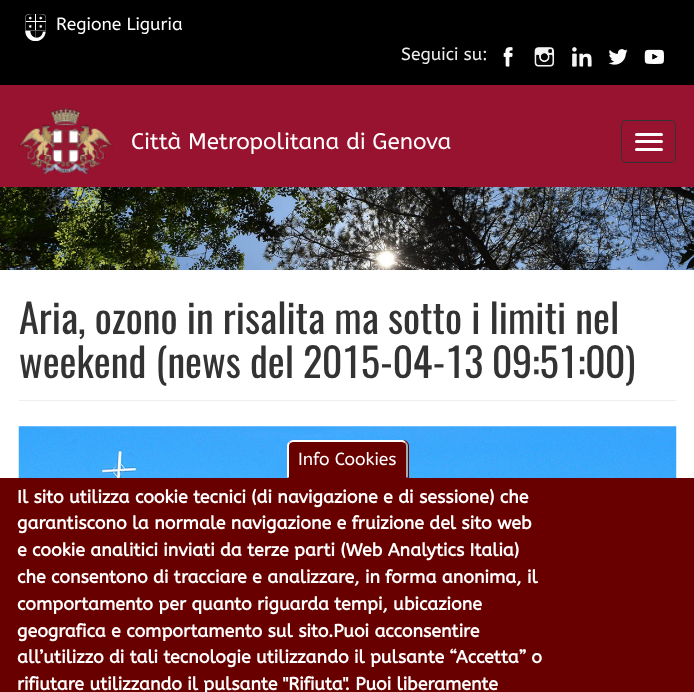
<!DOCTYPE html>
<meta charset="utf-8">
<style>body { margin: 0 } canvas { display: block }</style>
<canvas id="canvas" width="694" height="692"></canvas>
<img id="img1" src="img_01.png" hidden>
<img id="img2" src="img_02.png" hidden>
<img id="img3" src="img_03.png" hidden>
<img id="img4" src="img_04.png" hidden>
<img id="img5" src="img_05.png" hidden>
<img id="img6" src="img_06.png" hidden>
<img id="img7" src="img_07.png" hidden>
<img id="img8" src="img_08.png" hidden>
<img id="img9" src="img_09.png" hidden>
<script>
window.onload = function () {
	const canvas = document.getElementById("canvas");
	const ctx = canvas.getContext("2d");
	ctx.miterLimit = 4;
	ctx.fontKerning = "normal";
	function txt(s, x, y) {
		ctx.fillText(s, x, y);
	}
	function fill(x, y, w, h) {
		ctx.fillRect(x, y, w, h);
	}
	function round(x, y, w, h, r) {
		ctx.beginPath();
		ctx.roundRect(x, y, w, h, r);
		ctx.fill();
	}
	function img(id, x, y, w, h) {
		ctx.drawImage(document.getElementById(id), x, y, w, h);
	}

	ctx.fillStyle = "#FFFFFF";
	fill(0, 0, 694, 692);
	ctx.fillStyle = "#97132F";
	fill(0, 85, 694, 102);
	ctx.fillStyle = "#000000";
	fill(0, 0, 694, 85);
	img("img1", 25, 14, 21, 27);
	img("img2", 503, 47, 10, 20);
	img("img3", 534, 47, 21, 20);
	img("img4", 572, 47, 20, 20);
	img("img5", 608, 49, 20, 16);
	img("img6", 644, 49, 20, 15);
	img("img7", 18, 108, 95, 66);
	ctx.beginPath();
	ctx.roundRect(621.5, 120.5, 54, 42, 4.5);
	ctx.strokeStyle = "#333333";
	ctx.stroke();
	ctx.fillStyle = "#FFFFFF";
	round(635, 133, 28, 3, 1.5);
	round(635, 140, 28, 3, 1.5);
	round(635, 148, 28, 3, 1.5);
	img("img8", 0, 187, 694, 83);
	ctx.fillStyle = "#EEEEEE";
	fill(19, 400, 657, 1);
	img("img9", 18, 426, 659, 52);
	ctx.fillStyle = "#690000";
	fill(0, 478, 694, 214);
	ctx.beginPath();
	ctx.roundRect(288, 440, 121, 38, [6, 6, 0, 0]);
	ctx.fill();
	ctx.fillStyle = "#FFFFFF";
	ctx.beginPath();
	ctx.moveTo(293, 440);
	ctx.lineTo(403, 440);
	ctx.lineTo(406, 442);
	ctx.lineTo(405, 443);
	ctx.lineTo(402, 442);
	ctx.lineTo(293, 442);
	ctx.lineTo(290, 443);
	ctx.lineTo(289, 442);
	ctx.bezierCurveTo(290, 441, 291, 440, 293, 440);
	ctx.closePath();
	ctx.fill();
	ctx.fillStyle = "#AAAAAA";
	ctx.beginPath();
	ctx.moveTo(406, 477.5);
	ctx.lineTo(406, 446);
	ctx.bezierCurveTo(406, 445, 405.5, 444, 405, 443.5);
	ctx.lineTo(406, 442);
	ctx.bezierCurveTo(407.5, 443, 408, 444.5, 408, 446);
	ctx.lineTo(408, 477.5);
	ctx.closePath();
	ctx.fill();
	ctx.fillStyle = "#FFFFFF";
	ctx.beginPath();
	ctx.moveTo(289, 477.5);
	ctx.lineTo(287, 477.5);
	ctx.lineTo(287, 446);
	ctx.bezierCurveTo(287, 444.5, 287.5, 443, 289, 442);
	ctx.lineTo(290, 443.5);
	ctx.bezierCurveTo(289.5, 444, 289, 445, 289, 446);
	ctx.closePath();
	ctx.fill();
	ctx.font = "17.5px abeezee";
	txt("Regione Liguria", 56, 30);
	ctx.fillStyle = "#EEEEEE";
	txt("Seguici su:", 401, 60);
	ctx.font = "22.5px abeezee";
	ctx.fillStyle = "#FFFFFF";
	txt("Città Metropolitana di Genova", 131, 149);
	ctx.font = "40.25px Oswald";
	ctx.fillStyle = "#333333";
	txt("Aria, ozono in risalita ma sotto i limiti nel", 19, 334);
	txt("weekend (news del 2015-04-13 09:51:00)", 19, 378);
	ctx.font = "17.5px abeezee";
	ctx.fillStyle = "#FFFFFF";
	txt("Info Cookies", 298, 465);
	ctx.font = "bold 17.85px abeezee";
	txt("Il sito utilizza cookie tecnici (di navigazione e di sessione) che", 17, 503);
	txt("garantiscono la normale navigazione e fruizione del sito web", 17, 529);
	txt("e cookie analitici inviati da terze parti (Web Analytics Italia)", 17, 556);
	txt("che consentono di tracciare e analizzare, in forma anonima, il", 17, 583);
	txt("comportamento per quanto riguarda tempi, ubicazione", 17, 610);
	txt("geografica e comportamento sul sito.Puoi acconsentire", 17, 637);
	txt("all’utilizzo di tali tecnologie utilizzando il pulsante “Accetta” o", 17, 663);
	txt("rifiutare utilizzando il pulsante \"Rifiuta\". Puoi liberamente", 17, 690);
};
</script>
